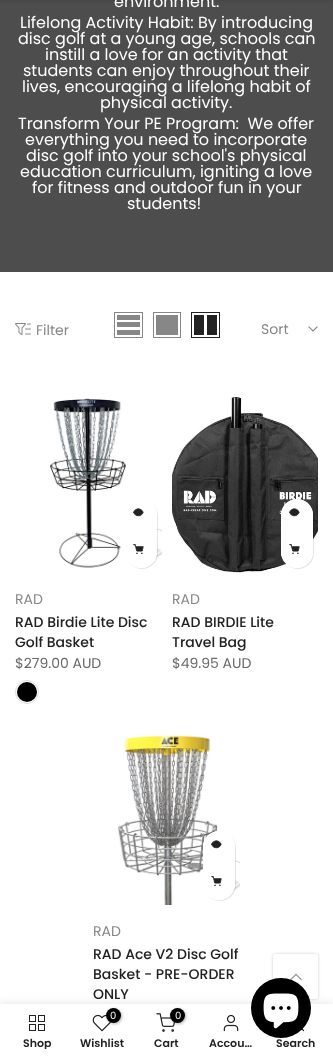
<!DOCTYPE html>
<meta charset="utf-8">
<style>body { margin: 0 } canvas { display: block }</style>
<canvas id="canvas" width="333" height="1059"></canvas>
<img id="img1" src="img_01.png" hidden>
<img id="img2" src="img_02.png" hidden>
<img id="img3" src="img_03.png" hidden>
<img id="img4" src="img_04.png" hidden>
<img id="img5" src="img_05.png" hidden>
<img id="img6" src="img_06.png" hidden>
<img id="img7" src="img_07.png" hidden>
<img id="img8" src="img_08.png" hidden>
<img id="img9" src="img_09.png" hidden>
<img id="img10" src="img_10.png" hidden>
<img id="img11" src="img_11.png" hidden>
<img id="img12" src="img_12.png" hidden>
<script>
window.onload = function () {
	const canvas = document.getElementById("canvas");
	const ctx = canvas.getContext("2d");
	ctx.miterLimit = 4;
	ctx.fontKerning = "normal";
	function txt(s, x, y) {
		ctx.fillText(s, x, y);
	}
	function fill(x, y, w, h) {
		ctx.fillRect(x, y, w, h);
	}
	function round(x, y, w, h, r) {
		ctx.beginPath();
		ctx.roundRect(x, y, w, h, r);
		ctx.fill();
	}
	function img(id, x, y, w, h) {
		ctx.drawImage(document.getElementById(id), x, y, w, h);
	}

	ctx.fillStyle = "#FFFFFF";
	fill(0, 0, 333, 1059);
	ctx.fillStyle = "#4D4D4D";
	fill(0, 0, 333, 272);
	ctx.fillStyle = "rgba(0, 0, 0, 0.1)";
	ctx.filter = "blur(1.5px)";
	ctx.beginPath();
	ctx.rect(0, -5, 333, 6);
	ctx.fill();
	ctx.filter = "none";
	img("img1", 15, 323, 16, 12);
	ctx.strokeStyle = "#878787";
	ctx.strokeRect(114.5, 312.5, 28, 25);
	ctx.fillStyle = "#878787";
	fill(117, 330, 23, 5);
	fill(117, 322, 23, 5);
	fill(117, 315, 23, 5);
	ctx.strokeRect(153.5, 312.5, 27, 25);
	fill(156, 315, 22, 20);
	ctx.strokeStyle = "#222222";
	ctx.strokeRect(191.5, 312.5, 28, 25);
	ctx.fillStyle = "#222222";
	fill(207, 315, 10, 20);
	fill(194, 315, 10, 20);
	ctx.beginPath();
	ctx.moveTo(317, 327);
	ctx.lineTo(313, 331);
	ctx.lineTo(309, 327);
	ctx.strokeStyle = "#878787";
	ctx.lineWidth = 1.1;
	ctx.lineCap = "square";
	ctx.stroke();
	img("img2", 49, 398, 113, 170);
	ctx.fillStyle = "rgba(0, 0, 0, 0.1)";
	ctx.filter = "blur(0.5px)";
	ctx.beginPath();
	ctx.roundRect(126, 500, 32, 69, 16);
	ctx.fill();
	ctx.filter = "none";
	ctx.fillStyle = "#FFFFFF";
	round(125, 499, 32, 69, 16);
	ctx.beginPath();
	ctx.arc(141, 515, 16, 0, Math.PI * 2);
	ctx.fill();
	img("img3", 133, 508, 11, 9);
	ctx.beginPath();
	ctx.arc(141, 552, 16, 0, Math.PI * 2);
	ctx.fill();
	img("img4", 133, 544, 11, 10);
	ctx.beginPath();
	ctx.arc(27, 692, 11.5, 0, Math.PI * 2);
	ctx.strokeStyle = "#DDDDDD";
	ctx.lineWidth = 1;
	ctx.stroke();
	ctx.fillStyle = "#000000";
	ctx.beginPath();
	ctx.arc(27, 692, 10, 0, Math.PI * 2);
	ctx.fill();
	img("img5", 172, 397, 146, 176);
	ctx.fillStyle = "rgba(0, 0, 0, 0.1)";
	ctx.filter = "blur(0.5px)";
	ctx.beginPath();
	ctx.roundRect(282, 500, 32, 69, 16);
	ctx.fill();
	ctx.filter = "none";
	ctx.fillStyle = "#FFFFFF";
	round(281, 499, 32, 69, 16);
	ctx.beginPath();
	ctx.arc(297, 515, 16, 0, Math.PI * 2);
	ctx.fill();
	img("img3", 289, 508, 11, 9);
	ctx.beginPath();
	ctx.arc(297, 552, 16, 0, Math.PI * 2);
	ctx.fill();
	img("img4", 289, 544, 11, 10);
	img("img6", 117, 733, 123, 172);
	ctx.fillStyle = "rgba(0, 0, 0, 0.1)";
	ctx.filter = "blur(0.5px)";
	ctx.beginPath();
	ctx.roundRect(204, 832, 32, 69, 16);
	ctx.fill();
	ctx.filter = "none";
	ctx.fillStyle = "#FFFFFF";
	round(203, 831, 32, 69, 16);
	ctx.beginPath();
	ctx.arc(219, 847, 16, 0, Math.PI * 2);
	ctx.fill();
	img("img3", 211, 840, 11, 9);
	ctx.beginPath();
	ctx.arc(219, 884, 16, 0, Math.PI * 2);
	ctx.fill();
	img("img4", 211, 876, 11, 10);
	ctx.fillStyle = "rgba(0, 0, 0, 0.12)";
	ctx.filter = "blur(4.5px)";
	ctx.beginPath();
	ctx.rect(0, 1004, 333, 55);
	ctx.fill();
	ctx.filter = "none";
	ctx.fillStyle = "#FFFFFF";
	fill(0, 1004, 333, 55);
	ctx.fillStyle = "rgba(0, 0, 0, 0.2)";
	ctx.filter = "blur(1.5px)";
	ctx.beginPath();
	ctx.roundRect(273, 954, 45, 45, 3);
	ctx.fill();
	ctx.filter = "none";
	ctx.fillStyle = "#FFFFFF";
	round(273, 954, 45, 45, 3);
	img("img7", 290, 973, 12, 8);
	ctx.beginPath();
	ctx.moveTo(303.5, 1030.5);
	ctx.lineTo(300, 1027);
	ctx.strokeStyle = "#222222";
	ctx.lineWidth = 1.2;
	ctx.lineCap = "round";
	ctx.lineJoin = "round";
	ctx.stroke();
	ctx.fillStyle = "#000000";
	ctx.beginPath();
	ctx.arc(281, 1008, 30, 0, Math.PI * 2);
	ctx.fill();
	img("img8", 263, 993, 36, 36);
	img("img9", 29, 1015, 16, 16);
	img("img10", 92, 1014, 19, 18);
	ctx.fillStyle = "rgba(0, 0, 0, 0.3)";
	ctx.filter = "blur(1.5px)";
	ctx.beginPath();
	ctx.roundRect(107, 1009, 15, 15, 7.5);
	ctx.fill();
	ctx.filter = "none";
	ctx.fillStyle = "#000000";
	ctx.beginPath();
	ctx.arc(113.5, 1015.5, 7.5, 0, Math.PI * 2);
	ctx.fill();
	img("img11", 156, 1013, 19, 19);
	ctx.fillStyle = "rgba(0, 0, 0, 0.3)";
	ctx.filter = "blur(1.5px)";
	ctx.beginPath();
	ctx.roundRect(171, 1009, 15, 15, 7.5);
	ctx.fill();
	ctx.filter = "none";
	ctx.fillStyle = "#000000";
	ctx.beginPath();
	ctx.arc(177.5, 1015.5, 7.5, 0, Math.PI * 2);
	ctx.fill();
	img("img12", 223, 1014, 16, 18);
	ctx.font = "16px Poppins";
	ctx.fillStyle = "#FFFFFF";
	txt("environment.", 114, 7);
	txt("Lifelong Activity Habit: By introducing", 20, 28);
	txt("disc golf at a young age, schools can", 18, 44);
	txt("instill a love for an activity that", 45, 60);
	txt("students can enjoy throughout their", 23, 76);
	txt("lives, encouraging a lifelong habit of", 22, 92);
	txt("physical activity.", 100, 108);
	txt("Transform Your PE Program:  We offer", 18, 129);
	txt("everything you need to incorporate", 25, 145);
	txt("disc golf into your school's physical", 26, 161);
	txt("education curriculum, igniting a love", 20, 177);
	txt("for fitness and outdoor fun in your", 32, 193);
	txt("students!", 127, 209);
	ctx.font = "14px Poppins";
	ctx.fillStyle = "#878787";
	txt("Filter", 36, 335);
	txt("Sort", 261, 334);
	txt("RAD", 15, 604);
	ctx.font = "500 14px Poppins";
	ctx.fillStyle = "#222222";
	txt("RAD Birdie Lite Disc", 15, 627);
	txt("Golf Basket", 15, 647);
	ctx.font = "14px Poppins";
	ctx.fillStyle = "#696969";
	txt("$279.00 AUD", 15, 668);
	ctx.fillStyle = "#878787";
	txt("RAD", 172, 604);
	ctx.font = "500 14px Poppins";
	ctx.fillStyle = "#222222";
	txt("RAD BIRDIE Lite", 172, 627);
	txt("Travel Bag", 172, 647);
	ctx.font = "14px Poppins";
	ctx.fillStyle = "#696969";
	txt("$49.95 AUD", 172, 668);
	ctx.fillStyle = "#878787";
	txt("RAD", 93, 936);
	ctx.font = "500 14px Poppins";
	ctx.fillStyle = "#222222";
	txt("RAD Ace V2 Disc Golf", 93, 959);
	txt("Basket - PRE-ORDER", 93, 979);
	txt("ONLY", 93, 999);
	ctx.save();
	ctx.beginPath();
	ctx.rect(15, 1038, 45, 11);
	ctx.clip();
	ctx.font = "600 11px Poppins";
	txt("Shop", 23, 1047);
	ctx.restore();
	ctx.font = "10px Poppins";
	ctx.fillStyle = "#FFFFFF";
	txt("0", 110, 1019);
	ctx.font = "600 11px Poppins";
	ctx.fillStyle = "#222222";
	txt("Wishlist", 80, 1047);
	ctx.font = "10px Poppins";
	ctx.fillStyle = "#FFFFFF";
	txt("0", 175, 1019);
	ctx.font = "600 11px Poppins";
	ctx.fillStyle = "#222222";
	txt("Cart", 154, 1047);
	txt("Accou…", 209, 1047);
	txt("Search", 276, 1047);
};
</script>
